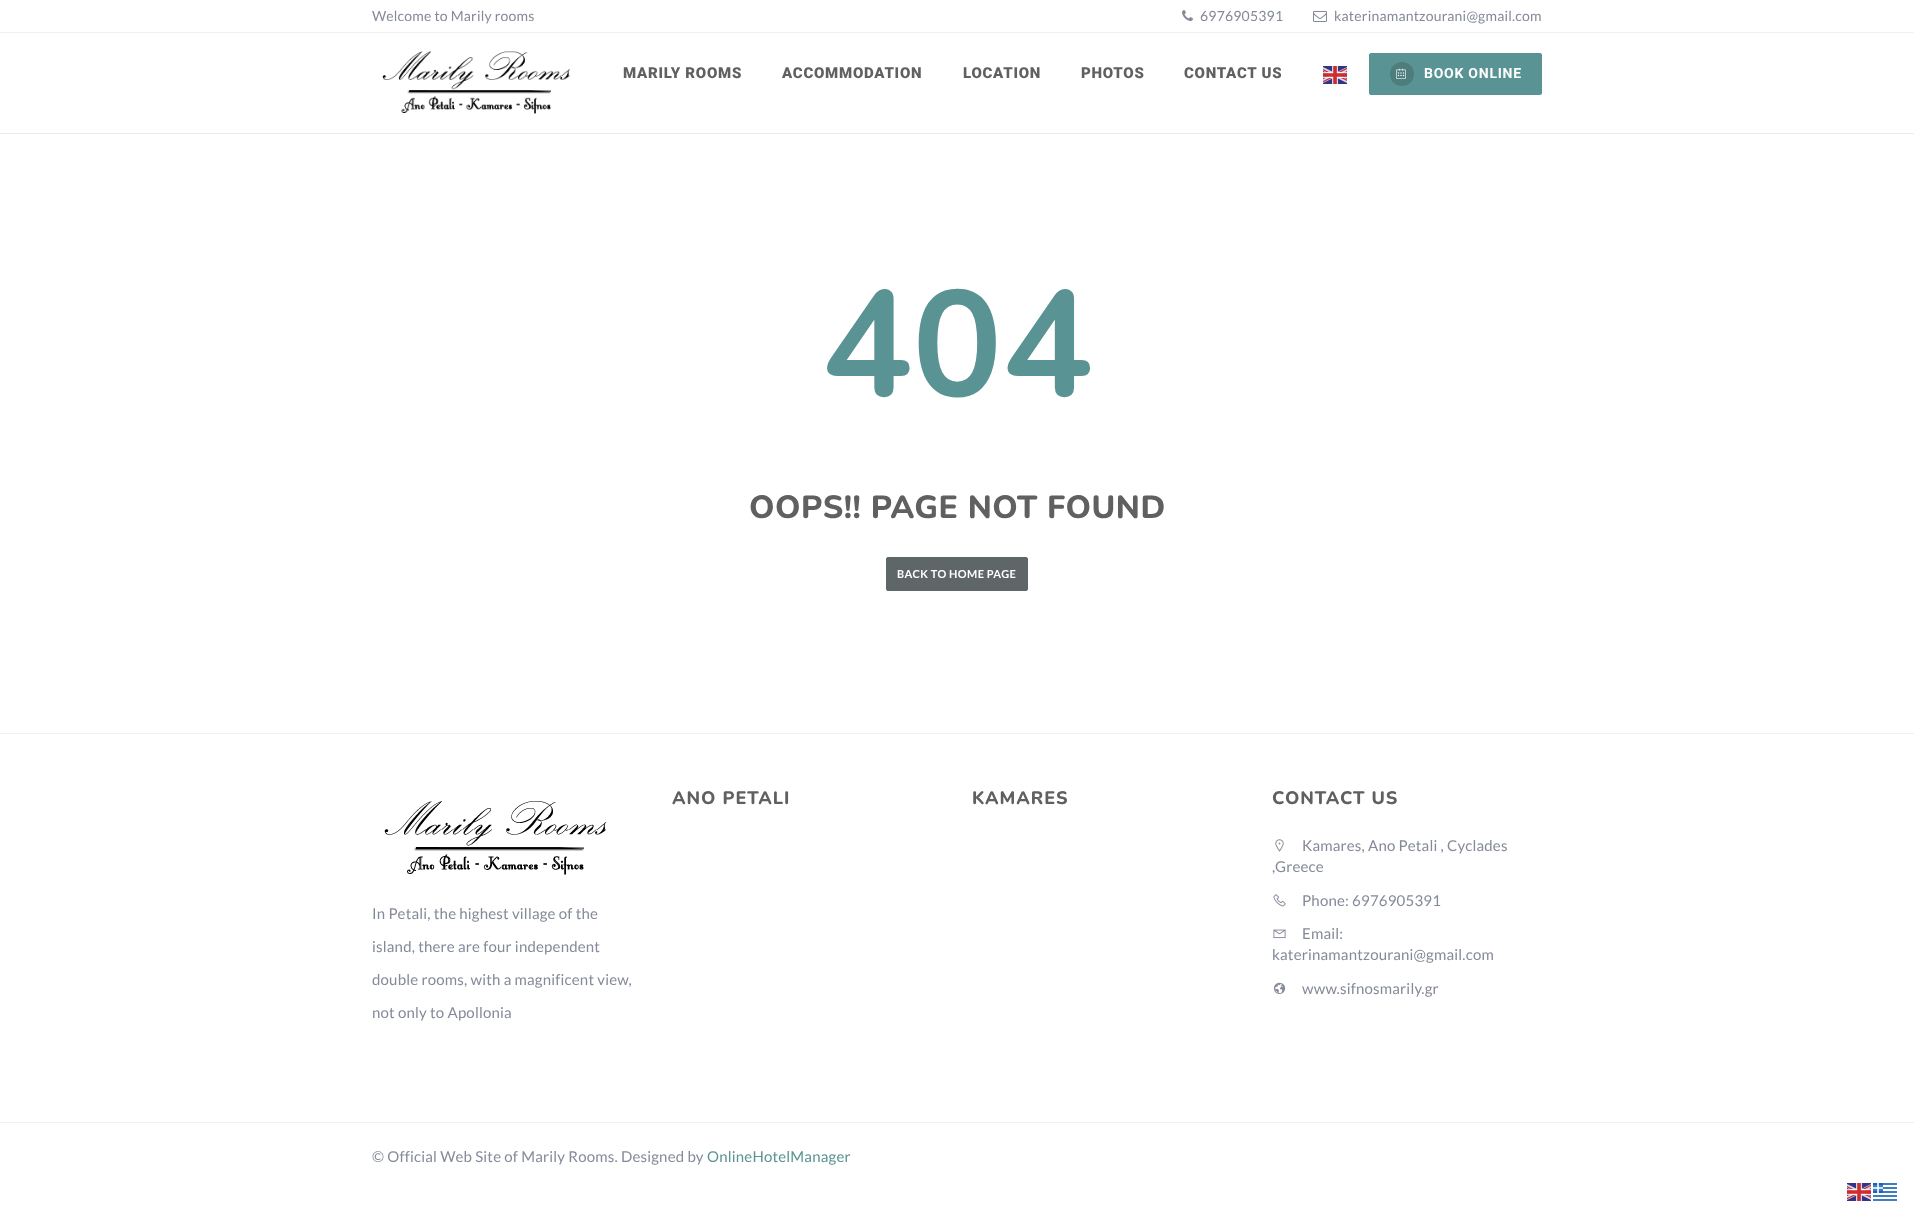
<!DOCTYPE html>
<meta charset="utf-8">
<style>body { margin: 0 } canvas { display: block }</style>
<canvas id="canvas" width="1914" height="1219"></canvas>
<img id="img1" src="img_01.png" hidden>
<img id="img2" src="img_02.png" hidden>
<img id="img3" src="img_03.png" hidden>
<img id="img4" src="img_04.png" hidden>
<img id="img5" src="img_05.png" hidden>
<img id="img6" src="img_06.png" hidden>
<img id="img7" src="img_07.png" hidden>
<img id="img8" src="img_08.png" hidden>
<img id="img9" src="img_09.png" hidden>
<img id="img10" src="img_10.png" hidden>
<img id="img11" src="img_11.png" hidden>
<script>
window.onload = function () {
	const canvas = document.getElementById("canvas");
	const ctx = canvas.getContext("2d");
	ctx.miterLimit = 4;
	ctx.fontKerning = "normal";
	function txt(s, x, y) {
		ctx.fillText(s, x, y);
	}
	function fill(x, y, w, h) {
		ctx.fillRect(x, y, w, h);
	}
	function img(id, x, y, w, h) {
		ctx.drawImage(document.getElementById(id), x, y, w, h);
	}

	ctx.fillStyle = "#FFFFFF";
	fill(0, 0, 1914, 1219);
	ctx.fillStyle = "#F2F2F2";
	fill(0, 32, 1914, 1);
	img("img1", 1182, 10, 11, 11);
	img("img2", 1313, 11, 14, 11);
	img("img3", 382, 51, 189, 63);
	img("img4", 1323, 66, 24, 18);
	ctx.fillStyle = "#5A9393";
	ctx.beginPath();
	ctx.roundRect(1369.5, 53.5, 172, 41, 1.5);
	ctx.fill();
	ctx.strokeStyle = "#5A9393";
	ctx.stroke();
	ctx.fillStyle = "#4D7D7D";
	ctx.beginPath();
	ctx.arc(1402, 74, 12, 0, Math.PI * 2);
	ctx.fill();
	img("img5", 1396, 68, 10, 11);
	ctx.fillStyle = "#EBEBEB";
	fill(0, 133, 1914, 1);
	ctx.fillStyle = "#5E6667";
	ctx.beginPath();
	ctx.roundRect(886.5, 557.5, 141, 33, 1.5);
	ctx.fill();
	ctx.strokeStyle = "#5E6667";
	ctx.stroke();
	ctx.fillStyle = "#F0F0F0";
	fill(0, 733, 1914, 1);
	fill(0, 1122, 1914, 1);
	img("img6", 384, 801, 223, 74);
	img("img7", 1275, 839, 9, 13);
	img("img8", 1273, 894, 13, 13);
	img("img9", 1273, 929, 13, 10);
	img("img10", 1273, 982, 13, 12);
	img("img4", 1847, 1183, 24, 18);
	img("img11", 1873, 1183, 24, 18);
	ctx.letterSpacing = "0.2px";
	ctx.font = "14px Lato";
	ctx.fillStyle = "#858A99";
	txt("Welcome to Marily rooms", 372, 21);
	txt("6976905391", 1200, 21);
	txt("katerinamantzourani@gmail.com", 1334, 21);
	ctx.letterSpacing = "0.75px";
	ctx.font = "900 15px Roboto";
	ctx.fillStyle = "#606060";
	txt("MARILY ROOMS", 623, 78);
	txt("ACCOMMODATION", 782, 78);
	txt("LOCATION", 963, 78);
	txt("PHOTOS", 1081, 78);
	txt("CONTACT US", 1184, 78);
	ctx.font = "bold 14px Roboto";
	ctx.fillStyle = "#FFFFFF";
	txt("BOOK ONLINE", 1424, 78);
	ctx.letterSpacing = "0.2px";
	ctx.font = "bold 150px Nunito";
	ctx.fillStyle = "#5A9393";
	txt("404", 822, 396);
	ctx.letterSpacing = "0.5px";
	ctx.font = "800 32px Nunito";
	ctx.fillStyle = "#606060";
	txt("OOPS!! PAGE NOT FOUND", 749, 518);
	ctx.letterSpacing = "0.4px";
	ctx.font = "bold 11px Lato";
	ctx.fillStyle = "#FFFFFF";
	txt("BACK TO HOME PAGE", 897, 578);
	ctx.letterSpacing = "0.2px";
	ctx.font = "15px Lato";
	ctx.fillStyle = "#858A99";
	txt("In Petali, the highest village of the", 372, 919);
	txt("island, there are four independent", 372, 952);
	txt("double rooms, with a magnificent view,", 372, 985);
	txt("not only to Apollonia", 372, 1018);
	ctx.letterSpacing = "1px";
	ctx.font = "800 18px Nunito";
	ctx.fillStyle = "#606060";
	txt("ANO PETALI", 672, 804);
	txt("KAMARES", 972, 804);
	txt("CONTACT US", 1272, 804);
	ctx.letterSpacing = "0.2px";
	ctx.font = "15px Lato";
	ctx.fillStyle = "#858A99";
	txt("Kamares, Ano Petali , Cyclades", 1302, 851);
	txt(",Greece", 1272, 872);
	txt("Phone: 6976905391", 1302, 906);
	txt("Email:", 1302, 939);
	txt("katerinamantzourani@gmail.com", 1272, 960);
	txt("www.sifnosmarily.gr", 1302, 994);
	txt("© Official Web Site of Marily Rooms. Designed by", 372, 1162);
	ctx.fillStyle = "#5A9393";
	txt("OnlineHotelManager", 707, 1162);
};
</script>
